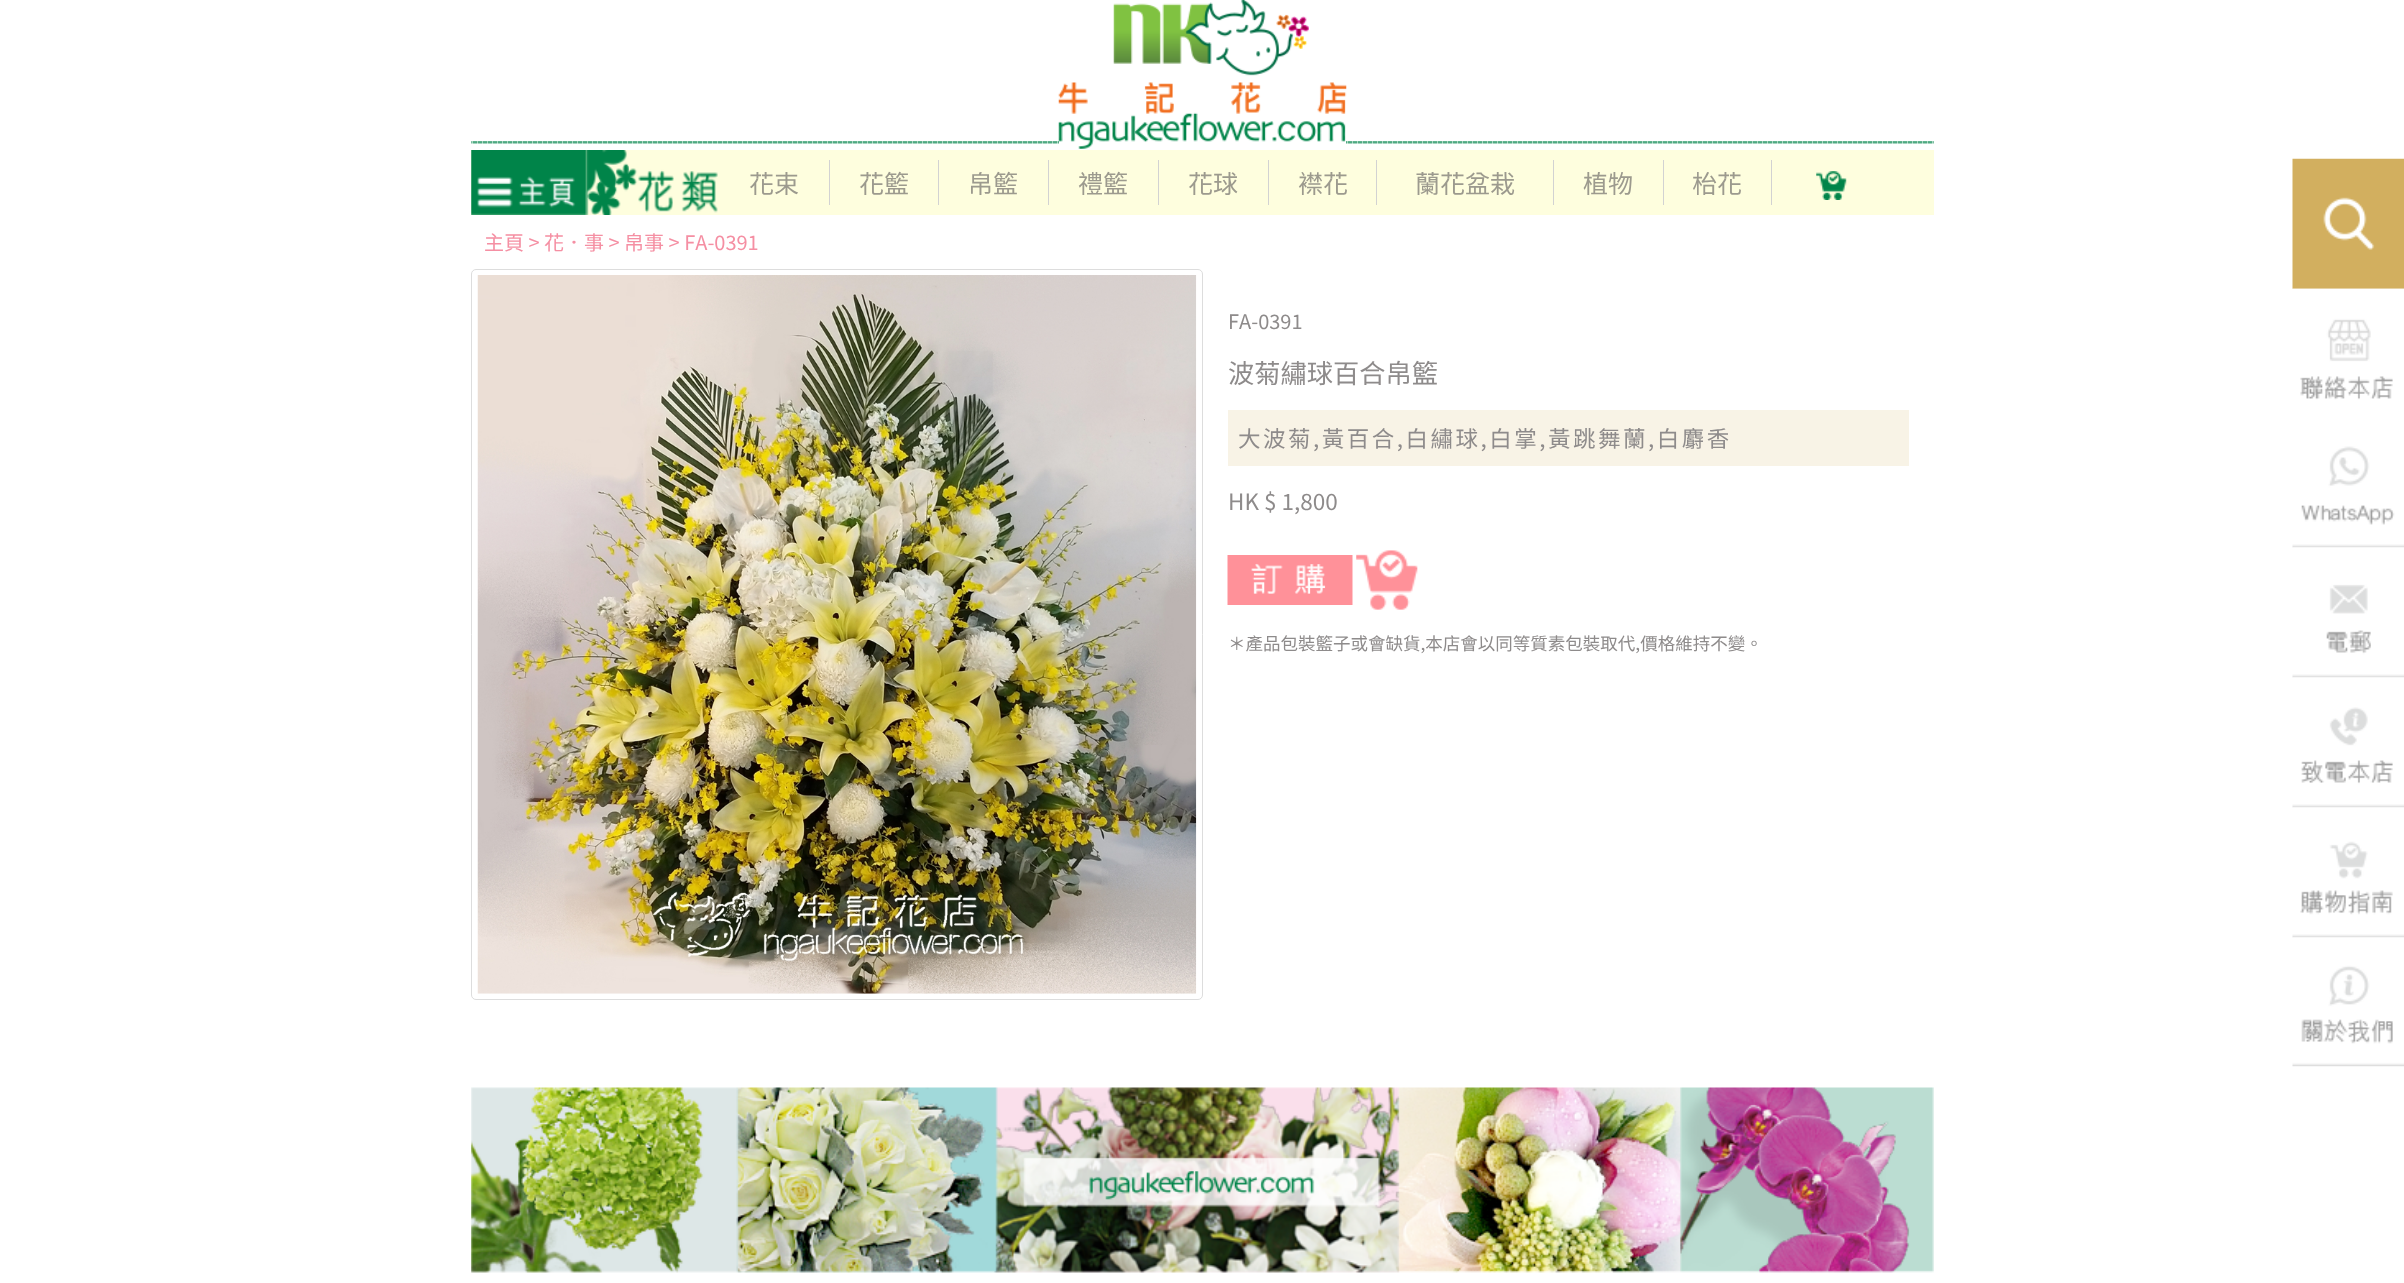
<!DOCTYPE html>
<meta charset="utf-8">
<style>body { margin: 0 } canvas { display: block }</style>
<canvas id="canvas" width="2404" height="1283"></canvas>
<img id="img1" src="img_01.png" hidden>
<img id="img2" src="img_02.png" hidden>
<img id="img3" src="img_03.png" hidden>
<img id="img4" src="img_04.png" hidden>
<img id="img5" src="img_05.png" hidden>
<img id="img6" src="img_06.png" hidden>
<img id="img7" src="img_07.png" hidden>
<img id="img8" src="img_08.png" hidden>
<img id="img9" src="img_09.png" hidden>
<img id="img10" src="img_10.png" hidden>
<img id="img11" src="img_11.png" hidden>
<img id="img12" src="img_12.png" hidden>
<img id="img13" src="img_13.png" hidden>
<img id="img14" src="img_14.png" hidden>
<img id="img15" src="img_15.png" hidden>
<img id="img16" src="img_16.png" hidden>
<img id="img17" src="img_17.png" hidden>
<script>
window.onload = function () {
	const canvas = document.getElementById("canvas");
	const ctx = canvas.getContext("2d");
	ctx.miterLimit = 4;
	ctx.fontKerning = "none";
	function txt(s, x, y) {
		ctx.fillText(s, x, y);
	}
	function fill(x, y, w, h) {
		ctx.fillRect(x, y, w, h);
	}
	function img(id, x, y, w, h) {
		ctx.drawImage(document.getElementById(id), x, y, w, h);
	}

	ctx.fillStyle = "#FFFFFF";
	fill(0, 0, 2404, 1283);
	img("img1", 471, 141, 1463, 3);
	fill(1059, 141, 287, 3);
	img("img2", 1058, 0, 289, 149);
	ctx.fillStyle = "#FEFEDE";
	fill(471, 150, 1463, 65);
	img("img3", 471, 150, 46, 65);
	img("img4", 517, 150, 70, 65);
	img("img5", 586, 150, 132, 65);
	ctx.fillStyle = "#D2D2D2";
	fill(829, 160, 1, 45);
	fill(938, 160, 1, 45);
	fill(1048, 160, 1, 45);
	fill(1158, 160, 1, 45);
	fill(1268, 160, 1, 45);
	fill(1376, 160, 1, 45);
	fill(1553, 160, 1, 45);
	fill(1663, 160, 1, 45);
	fill(1771, 160, 1, 45);
	img("img6", 1816, 171, 31, 29);
	ctx.beginPath();
	ctx.roundRect(471.5, 269.5, 731, 730, 4.5);
	ctx.strokeStyle = "#DDDDDD";
	ctx.stroke();
	img("img7", 477, 275, 720, 719);
	ctx.fillStyle = "#F8F3E6";
	fill(1228, 410, 681, 56);
	img("img8", 1227, 555, 126, 50);
	img("img9", 1356, 550, 62, 60);
	img("img10", 471, 1087, 1463, 186);
	img("img11", 2292, 158, 112, 131);
	img("img12", 2292, 288, 112, 112);
	img("img13", 2292, 446, 112, 102);
	img("img14", 2292, 547, 112, 131);
	img("img15", 2292, 677, 112, 131);
	img("img16", 2292, 807, 112, 131);
	img("img17", 2292, 937, 112, 130);
	ctx.font = "25px Noto Sans TC";
	ctx.fillStyle = "#9C9A8E";
	txt("花束", 749, 193);
	txt("花籃", 859, 193);
	txt("帛籃", 968, 193);
	txt("禮籃", 1078, 193);
	txt("花球", 1188, 193);
	txt("襟花", 1298, 193);
	txt("蘭花盆栽", 1415, 193);
	txt("植物", 1583, 193);
	txt("枱花", 1692, 193);
	ctx.font = "20px Noto Sans TC";
	ctx.fillStyle = "#F58FA3";
	txt("主頁 > 花．事 > 帛事 > FA-0391", 484, 250);
	ctx.fillStyle = "#8E8B8B";
	txt("FA-0391", 1228, 329);
	ctx.font = "26.25px Noto Sans TC";
	txt("波菊繡球百合帛籃", 1228, 383);
	ctx.letterSpacing = "2.5px";
	ctx.font = "22.5px Noto Sans TC";
	txt("大波菊,黃百合,白繡球,白掌,黃跳舞蘭,白麝香", 1238, 447);
	ctx.letterSpacing = "0px";
	txt("HK $ 1,800", 1228, 510);
	ctx.font = "17.5px Noto Sans TC";
	txt("＊產品包裝籃子或會缺貨,本店會以同等質素包裝取代,價格維持不變。", 1228, 650);
};
</script>
